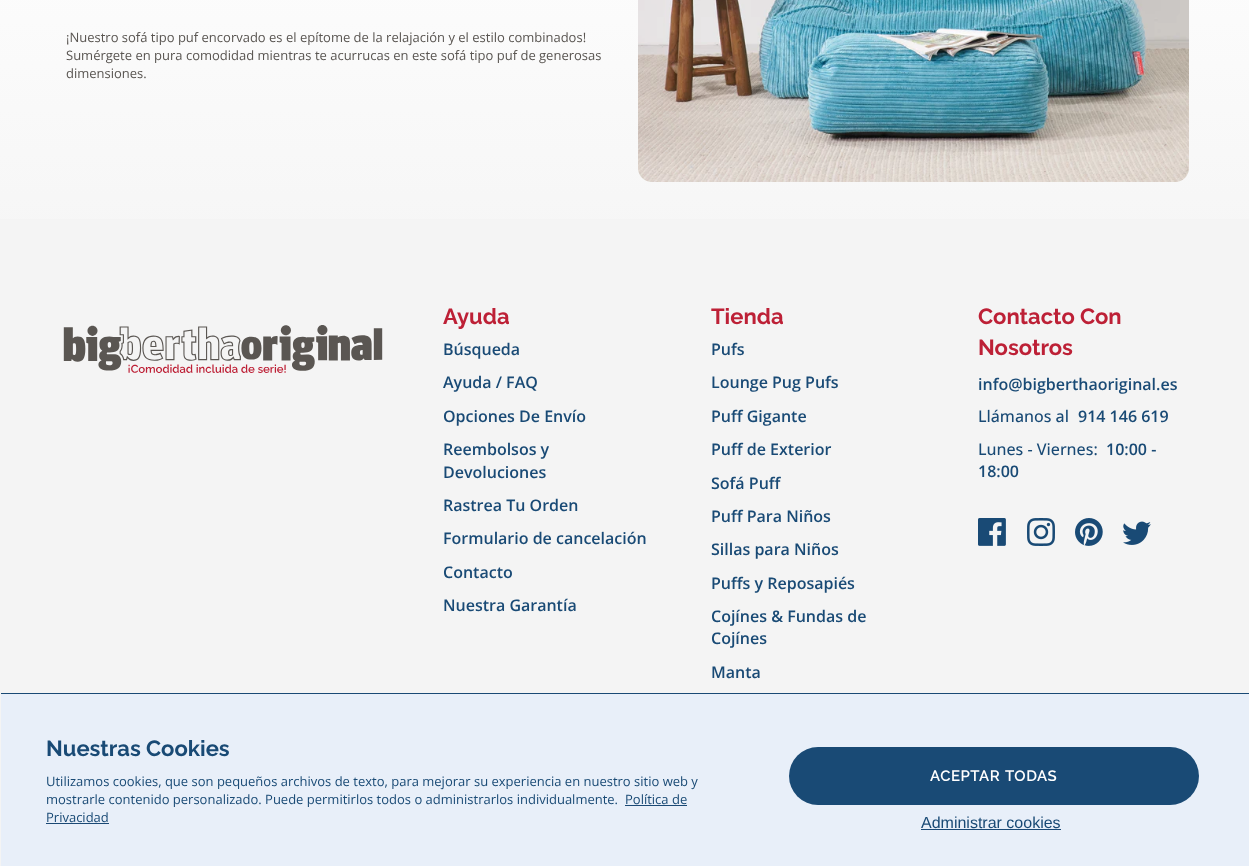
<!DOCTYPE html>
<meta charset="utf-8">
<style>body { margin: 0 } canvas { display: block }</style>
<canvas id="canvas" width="1249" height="866"></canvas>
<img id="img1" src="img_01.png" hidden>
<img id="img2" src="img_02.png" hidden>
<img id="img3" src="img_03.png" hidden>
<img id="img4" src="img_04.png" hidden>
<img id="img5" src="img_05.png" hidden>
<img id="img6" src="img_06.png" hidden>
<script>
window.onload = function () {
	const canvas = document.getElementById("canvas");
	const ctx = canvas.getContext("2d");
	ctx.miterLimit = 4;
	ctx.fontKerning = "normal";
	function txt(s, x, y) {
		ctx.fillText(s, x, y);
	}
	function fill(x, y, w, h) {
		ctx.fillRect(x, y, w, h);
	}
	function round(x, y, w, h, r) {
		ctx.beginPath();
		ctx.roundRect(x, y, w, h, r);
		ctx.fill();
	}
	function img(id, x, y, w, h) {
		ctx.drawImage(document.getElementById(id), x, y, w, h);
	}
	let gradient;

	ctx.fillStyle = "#F4F4F4";
	fill(0, 0, 1249, 866);
	gradient = ctx.createLinearGradient(625, 241, 625, -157);
	gradient.addColorStop(0, "#F6F6F6");
	gradient.addColorStop(1, "#FFFFFF");
	ctx.fillStyle = gradient;
	fill(0, 0, 1249, 219);
	img("img1", 638, 0, 551, 182);
	img("img2", 63, 325, 320, 48);
	img("img3", 978, 518, 28, 28);
	img("img4", 1027, 518, 28, 28);
	img("img5", 1075, 518, 28, 28);
	img("img6", 1123, 521, 28, 24);
	ctx.fillStyle = "#E8EFF9";
	fill(1, 694, 1248, 172);
	ctx.fillStyle = "#194A75";
	fill(1, 693, 1248, 1);
	ctx.fillStyle = "#1B4975";
	fill(625, 805, 62, 1);
	fill(46, 823, 63, 1);
	ctx.fillStyle = "#194A75";
	round(789, 747, 410, 58, 29);
	ctx.fillStyle = "#1B4975";
	fill(921, 829, 140, 1);
	ctx.font = "13px Open Sans";
	ctx.fillStyle = "#595551";
	txt("¡Nuestro sofá tipo puf encorvado es el epítome de la relajación y el estilo combinados!", 66, 42);
	txt("Sumérgete en pura comodidad mientras te acurrucas en este sofá tipo puf de generosas", 66, 60);
	txt("dimensiones.", 66, 78);
	ctx.font = "bold 22px Raleway";
	ctx.fillStyle = "#BD2036";
	txt("Ayuda", 443, 324);
	ctx.font = "600 16px Open Sans";
	ctx.fillStyle = "#194A75";
	txt("Búsqueda", 443, 355);
	txt("Ayuda / FAQ", 443, 388);
	txt("Opciones De Envío", 443, 422);
	txt("Reembolsos y", 443, 455);
	txt("Devoluciones", 443, 478);
	txt("Rastrea Tu Orden", 443, 511);
	txt("Formulario de cancelación", 443, 544);
	txt("Contacto", 443, 578);
	txt("Nuestra Garantía", 443, 611);
	ctx.font = "bold 22px Raleway";
	ctx.fillStyle = "#BD2036";
	txt("Tienda", 711, 324);
	ctx.font = "600 16px Open Sans";
	ctx.fillStyle = "#194A75";
	txt("Pufs", 711, 355);
	txt("Lounge Pug Pufs", 711, 388);
	txt("Puff Gigante", 711, 422);
	txt("Puff de Exterior", 711, 455);
	txt("Sofá Puff", 711, 489);
	txt("Puff Para Niños", 711, 522);
	txt("Sillas para Niños", 711, 555);
	txt("Puffs y Reposapiés", 711, 589);
	txt("Cojínes & Fundas de", 711, 622);
	txt("Cojínes", 711, 644);
	txt("Manta", 711, 678);
	ctx.font = "bold 22px Raleway";
	ctx.fillStyle = "#BD2036";
	txt("Contacto Con", 978, 324);
	txt("Nosotros", 978, 355);
	ctx.font = "600 16px Open Sans";
	ctx.fillStyle = "#194A75";
	txt("info@bigberthaoriginal.es", 978, 390);
	ctx.font = "500 16px Open Sans";
	txt("Llámanos al", 978, 422);
	ctx.font = "600 16px Open Sans";
	txt("914 146 619", 1078, 422);
	ctx.font = "500 16px Open Sans";
	txt("Lunes - Viernes:", 978, 455);
	ctx.font = "600 16px Open Sans";
	txt("10:00 -", 1106, 455);
	txt("18:00", 978, 477);
	ctx.font = "bold 22px Raleway";
	txt("Nuestras Cookies", 46, 756);
	ctx.font = "13px Open Sans";
	txt("Utilizamos cookies, que son pequeños archivos de texto, para mejorar su experiencia en nuestro sitio web y", 46, 786);
	txt("mostrarle contenido personalizado. Puede permitirlos todos o administrarlos individualmente.", 46, 804);
	txt("Política de", 625, 804);
	txt("Privacidad", 46, 822);
	ctx.letterSpacing = "0.5px";
	ctx.wordSpacing = "1px";
	ctx.font = "600 15px Raleway";
	ctx.fillStyle = "#FFFFFF";
	txt("ACEPTAR TODAS", 930, 781);
	ctx.letterSpacing = "0px";
	ctx.wordSpacing = "0px";
	ctx.font = "16px Liberation Sans";
	ctx.fillStyle = "#194A75";
	txt("Administrar cookies", 921, 828);
};
</script>
